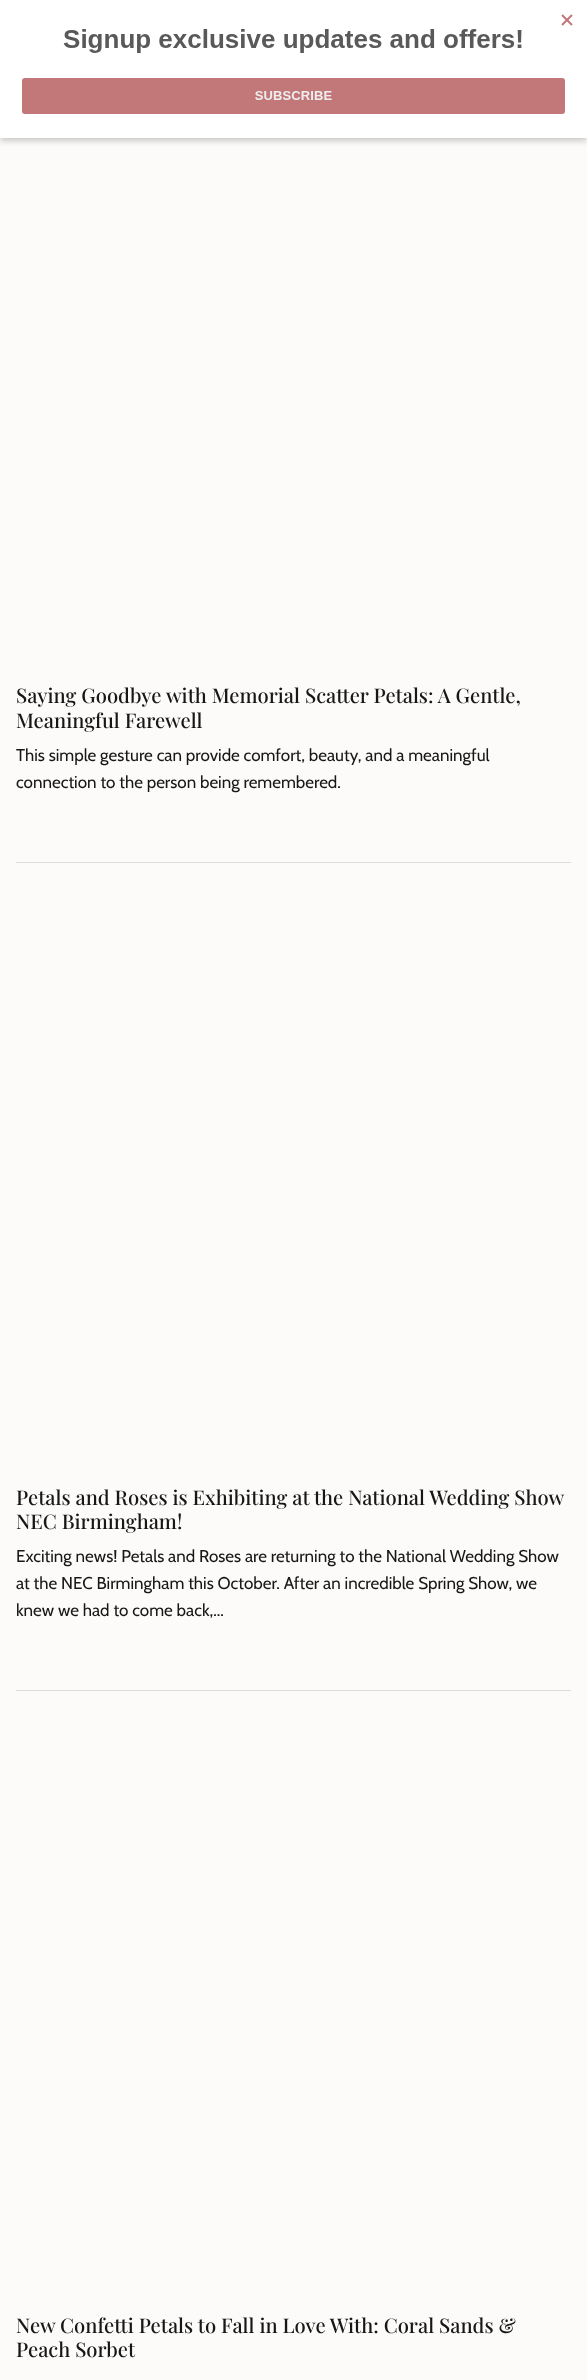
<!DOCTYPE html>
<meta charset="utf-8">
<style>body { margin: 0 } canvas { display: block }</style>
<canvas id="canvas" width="587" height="2380"></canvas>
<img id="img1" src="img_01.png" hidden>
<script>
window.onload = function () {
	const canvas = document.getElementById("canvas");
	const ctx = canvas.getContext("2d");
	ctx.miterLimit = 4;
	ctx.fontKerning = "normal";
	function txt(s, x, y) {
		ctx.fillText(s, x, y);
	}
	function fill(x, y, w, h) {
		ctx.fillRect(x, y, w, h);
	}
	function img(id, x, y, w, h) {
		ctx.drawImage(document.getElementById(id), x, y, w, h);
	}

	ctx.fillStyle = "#FCFBF9";
	fill(0, 0, 587, 2380);
	ctx.fillStyle = "rgba(0, 0, 0, 0.2)";
	ctx.filter = "blur(3px)";
	ctx.beginPath();
	ctx.rect(0, 3, 587, 138);
	ctx.fill();
	ctx.filter = "none";
	ctx.fillStyle = "#FFFFFF";
	fill(0, 0, 587, 138);
	img("img1", 22, 14, 551, 100);
	ctx.fillStyle = "#DDDCDA";
	fill(16, 862, 555, 1);
	fill(16, 1690, 555, 1);
	ctx.font = "500 20.2px Playfair Display";
	ctx.fillStyle = "#171717";
	txt("Saying Goodbye with Memorial Scatter Petals: A Gentle,", 16, 703);
	txt("Meaningful Farewell", 16, 728);
	ctx.font = "17px Cabin";
	txt("This simple gesture can provide comfort, beauty, and a meaningful", 16, 761);
	txt("connection to the person being remembered.", 16, 788);
	ctx.font = "500 20.2px Playfair Display";
	txt("Petals and Roses is Exhibiting at the National Wedding Show", 16, 1505);
	txt("NEC Birmingham!", 16, 1529);
	ctx.font = "17px Cabin";
	txt("Exciting news! Petals and Roses are returning to the National Wedding Show", 16, 1562);
	txt("at the NEC Birmingham this October. After an incredible Spring Show, we", 16, 1589);
	txt("knew we had to come back,...", 16, 1616);
	ctx.font = "500 20.2px Playfair Display";
	txt("New Confetti Petals to Fall in Love With: Coral Sands &", 16, 2333);
	txt("Peach Sorbet", 16, 2357);
};
</script>
